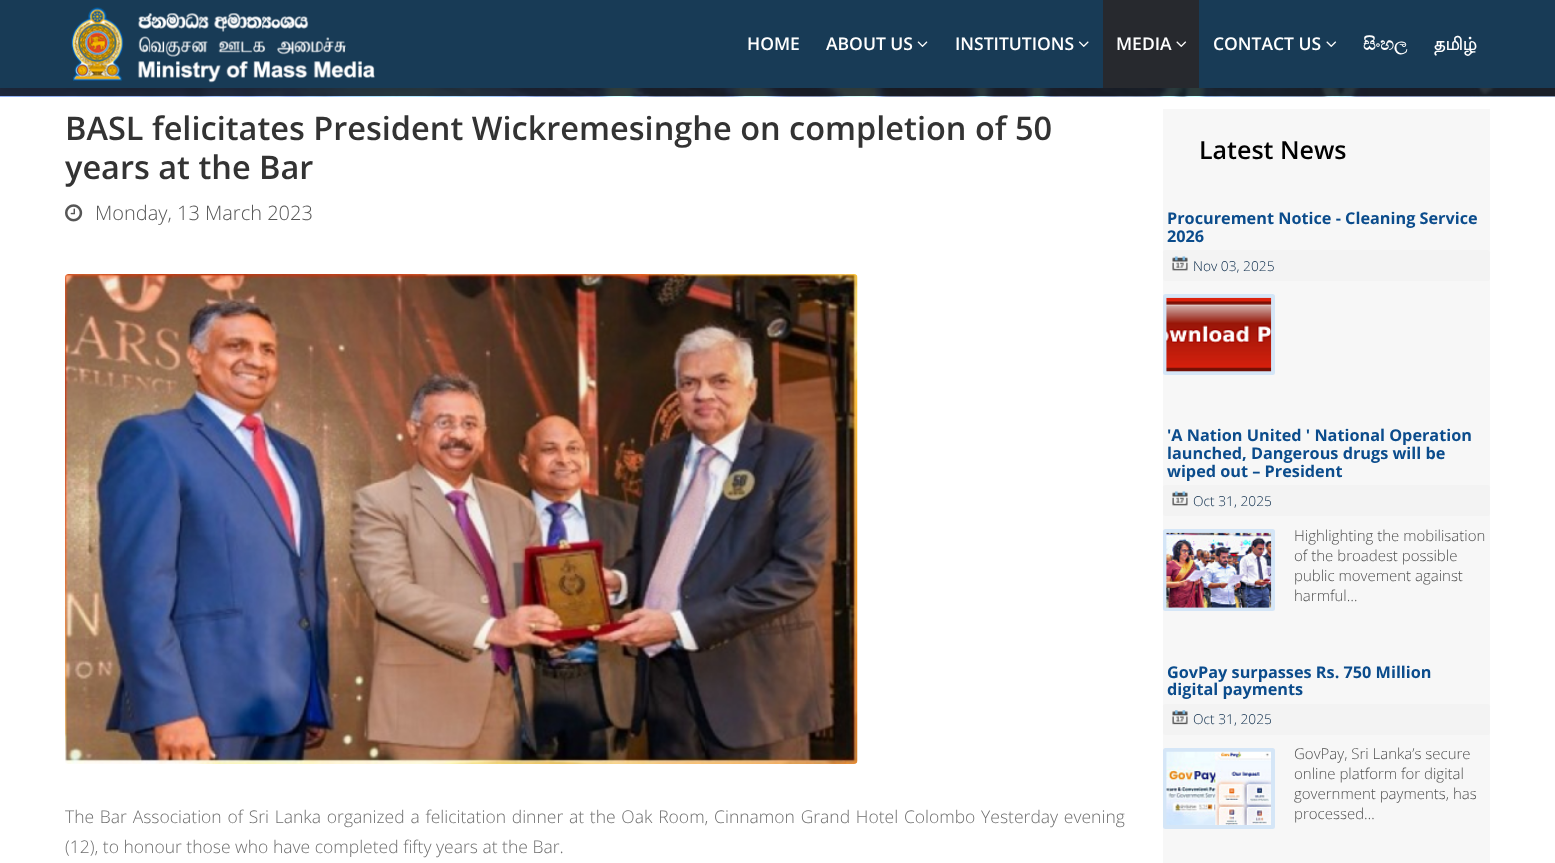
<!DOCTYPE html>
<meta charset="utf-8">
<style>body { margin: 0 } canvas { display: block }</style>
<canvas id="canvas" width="1555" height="863"></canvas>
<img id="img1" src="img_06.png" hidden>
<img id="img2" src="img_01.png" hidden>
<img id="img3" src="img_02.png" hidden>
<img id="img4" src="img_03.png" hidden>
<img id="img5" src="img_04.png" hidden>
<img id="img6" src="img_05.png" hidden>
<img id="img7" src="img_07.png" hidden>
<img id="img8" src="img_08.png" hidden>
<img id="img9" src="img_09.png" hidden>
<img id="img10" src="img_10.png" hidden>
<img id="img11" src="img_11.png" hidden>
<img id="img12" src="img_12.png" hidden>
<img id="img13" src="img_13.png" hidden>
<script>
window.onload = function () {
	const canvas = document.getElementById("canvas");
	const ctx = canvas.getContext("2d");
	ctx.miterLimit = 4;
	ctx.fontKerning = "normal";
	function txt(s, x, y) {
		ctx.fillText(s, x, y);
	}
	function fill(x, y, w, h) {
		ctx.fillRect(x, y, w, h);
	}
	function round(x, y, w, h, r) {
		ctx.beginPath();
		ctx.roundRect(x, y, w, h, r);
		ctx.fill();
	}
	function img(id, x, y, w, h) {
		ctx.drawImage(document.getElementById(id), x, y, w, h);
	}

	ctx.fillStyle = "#FFFFFF";
	fill(0, 0, 1555, 863);
	img("img1", 0, 88, 1555, 9);
	ctx.fillStyle = "rgba(0, 0, 0, 0.05)";
	ctx.filter = "blur(2px)";
	ctx.beginPath();
	ctx.rect(0, 4, 1555, 87);
	ctx.fill();
	ctx.filter = "none";
	ctx.fillStyle = "#183B56";
	fill(0, 0, 1555, 88);
	img("img2", 71, 7, 304, 76);
	img("img3", 917, 41, 11, 6);
	img("img4", 1078, 41, 11, 6);
	ctx.fillStyle = "#27292E";
	fill(1103, 0, 96, 88);
	img("img5", 1176, 41, 11, 6);
	img("img6", 1326, 41, 11, 6);
	img("img7", 65, 204, 18, 18);
	img("img8", 65, 274, 793, 490);
	ctx.fillStyle = "#F7F7F7";
	fill(1163, 109, 327, 754);
	ctx.fillStyle = "#F3F3F3";
	round(1163, 250, 327, 31, 2.5);
	img("img9", 1172, 256, 16, 15);
	ctx.beginPath();
	ctx.roundRect(1165, 296, 108, 77, 0.5);
	ctx.strokeStyle = "#D5E6F7";
	ctx.lineWidth = 4;
	ctx.stroke();
	img("img10", 1166, 297, 106, 75);
	round(1163, 485, 327, 31, 2.5);
	img("img9", 1172, 491, 16, 15);
	ctx.beginPath();
	ctx.roundRect(1165, 531, 108, 78, 0.5);
	ctx.stroke();
	img("img11", 1166, 532, 106, 76);
	round(1163, 704, 327, 31, 2.5);
	img("img12", 1172, 710, 16, 15);
	ctx.beginPath();
	ctx.roundRect(1165, 750, 108, 77, 0.5);
	ctx.stroke();
	img("img13", 1166, 751, 105, 74);
	ctx.font = "600 17.5px Open Sans";
	ctx.fillStyle = "#FFFFFF";
	txt("HOME", 747, 50);
	txt("ABOUT US", 826, 50);
	txt("INSTITUTIONS", 955, 50);
	txt("MEDIA", 1116, 50);
	txt("CONTACT US", 1213, 50);
	ctx.font = "bold 17.5px FreeSerif";
	txt("සිංහල", 1363, 50);
	ctx.font = "bold 17.5px Lohit Tamil";
	txt("தமிழ்", 1434, 50);
	ctx.font = "600 32.5px Open Sans";
	ctx.fillStyle = "#333333";
	txt("BASL felicitates President Wickremesinghe on completion of 50", 65, 140);
	txt("years at the Bar", 65, 179);
	ctx.font = "300 20px Open Sans";
	ctx.fillStyle = "#565656";
	txt("Monday, 13 March 2023", 95, 220);
	ctx.wordSpacing = "1.2px";
	ctx.font = "300 17.5px Open Sans";
	ctx.fillStyle = "#6F6F6F";
	txt("The Bar Association of Sri Lanka organized a felicitation dinner at the Oak Room, Cinnamon Grand Hotel Colombo Yesterday evening", 65, 823);
	ctx.wordSpacing = "0px";
	txt("(12), to honour those who have completed fifty years at the Bar.", 65, 853);
	ctx.font = "600 25px Open Sans";
	ctx.fillStyle = "#000000";
	txt("Latest News", 1199, 159);
	ctx.font = "bold 16.25px Open Sans";
	ctx.fillStyle = "#0B4C8C";
	txt("Procurement Notice - Cleaning Service", 1167, 224);
	txt("2026", 1167, 242);
	ctx.font = "300 13.75px Open Sans";
	ctx.fillStyle = "#052646";
	txt("Nov 03, 2025", 1193, 271);
	ctx.font = "bold 16.25px Open Sans";
	ctx.fillStyle = "#0B4C8C";
	txt("'A Nation United ' National Operation", 1167, 441);
	txt("launched, Dangerous drugs will be", 1167, 459);
	txt("wiped out – President", 1167, 477);
	ctx.font = "300 13.75px Open Sans";
	ctx.fillStyle = "#052646";
	txt("Oct 31, 2025", 1193, 506);
	ctx.font = "300 15px Open Sans";
	ctx.fillStyle = "#505050";
	txt("Highlighting the mobilisation", 1294, 541);
	txt("of the broadest possible", 1294, 561);
	txt("public movement against", 1294, 581);
	txt("harmful…", 1294, 601);
	ctx.font = "bold 16.25px Open Sans";
	ctx.fillStyle = "#0B4C8C";
	txt("GovPay surpasses Rs. 750 Million", 1167, 678);
	txt("digital payments", 1167, 695);
	ctx.font = "300 13.75px Open Sans";
	ctx.fillStyle = "#052646";
	txt("Oct 31, 2025", 1193, 724);
	ctx.font = "300 15px Open Sans";
	ctx.fillStyle = "#505050";
	txt("GovPay, Sri Lanka’s secure", 1294, 759);
	txt("online platform for digital", 1294, 779);
	txt("government payments, has", 1294, 799);
	txt("processed…", 1294, 819);
};
</script>
